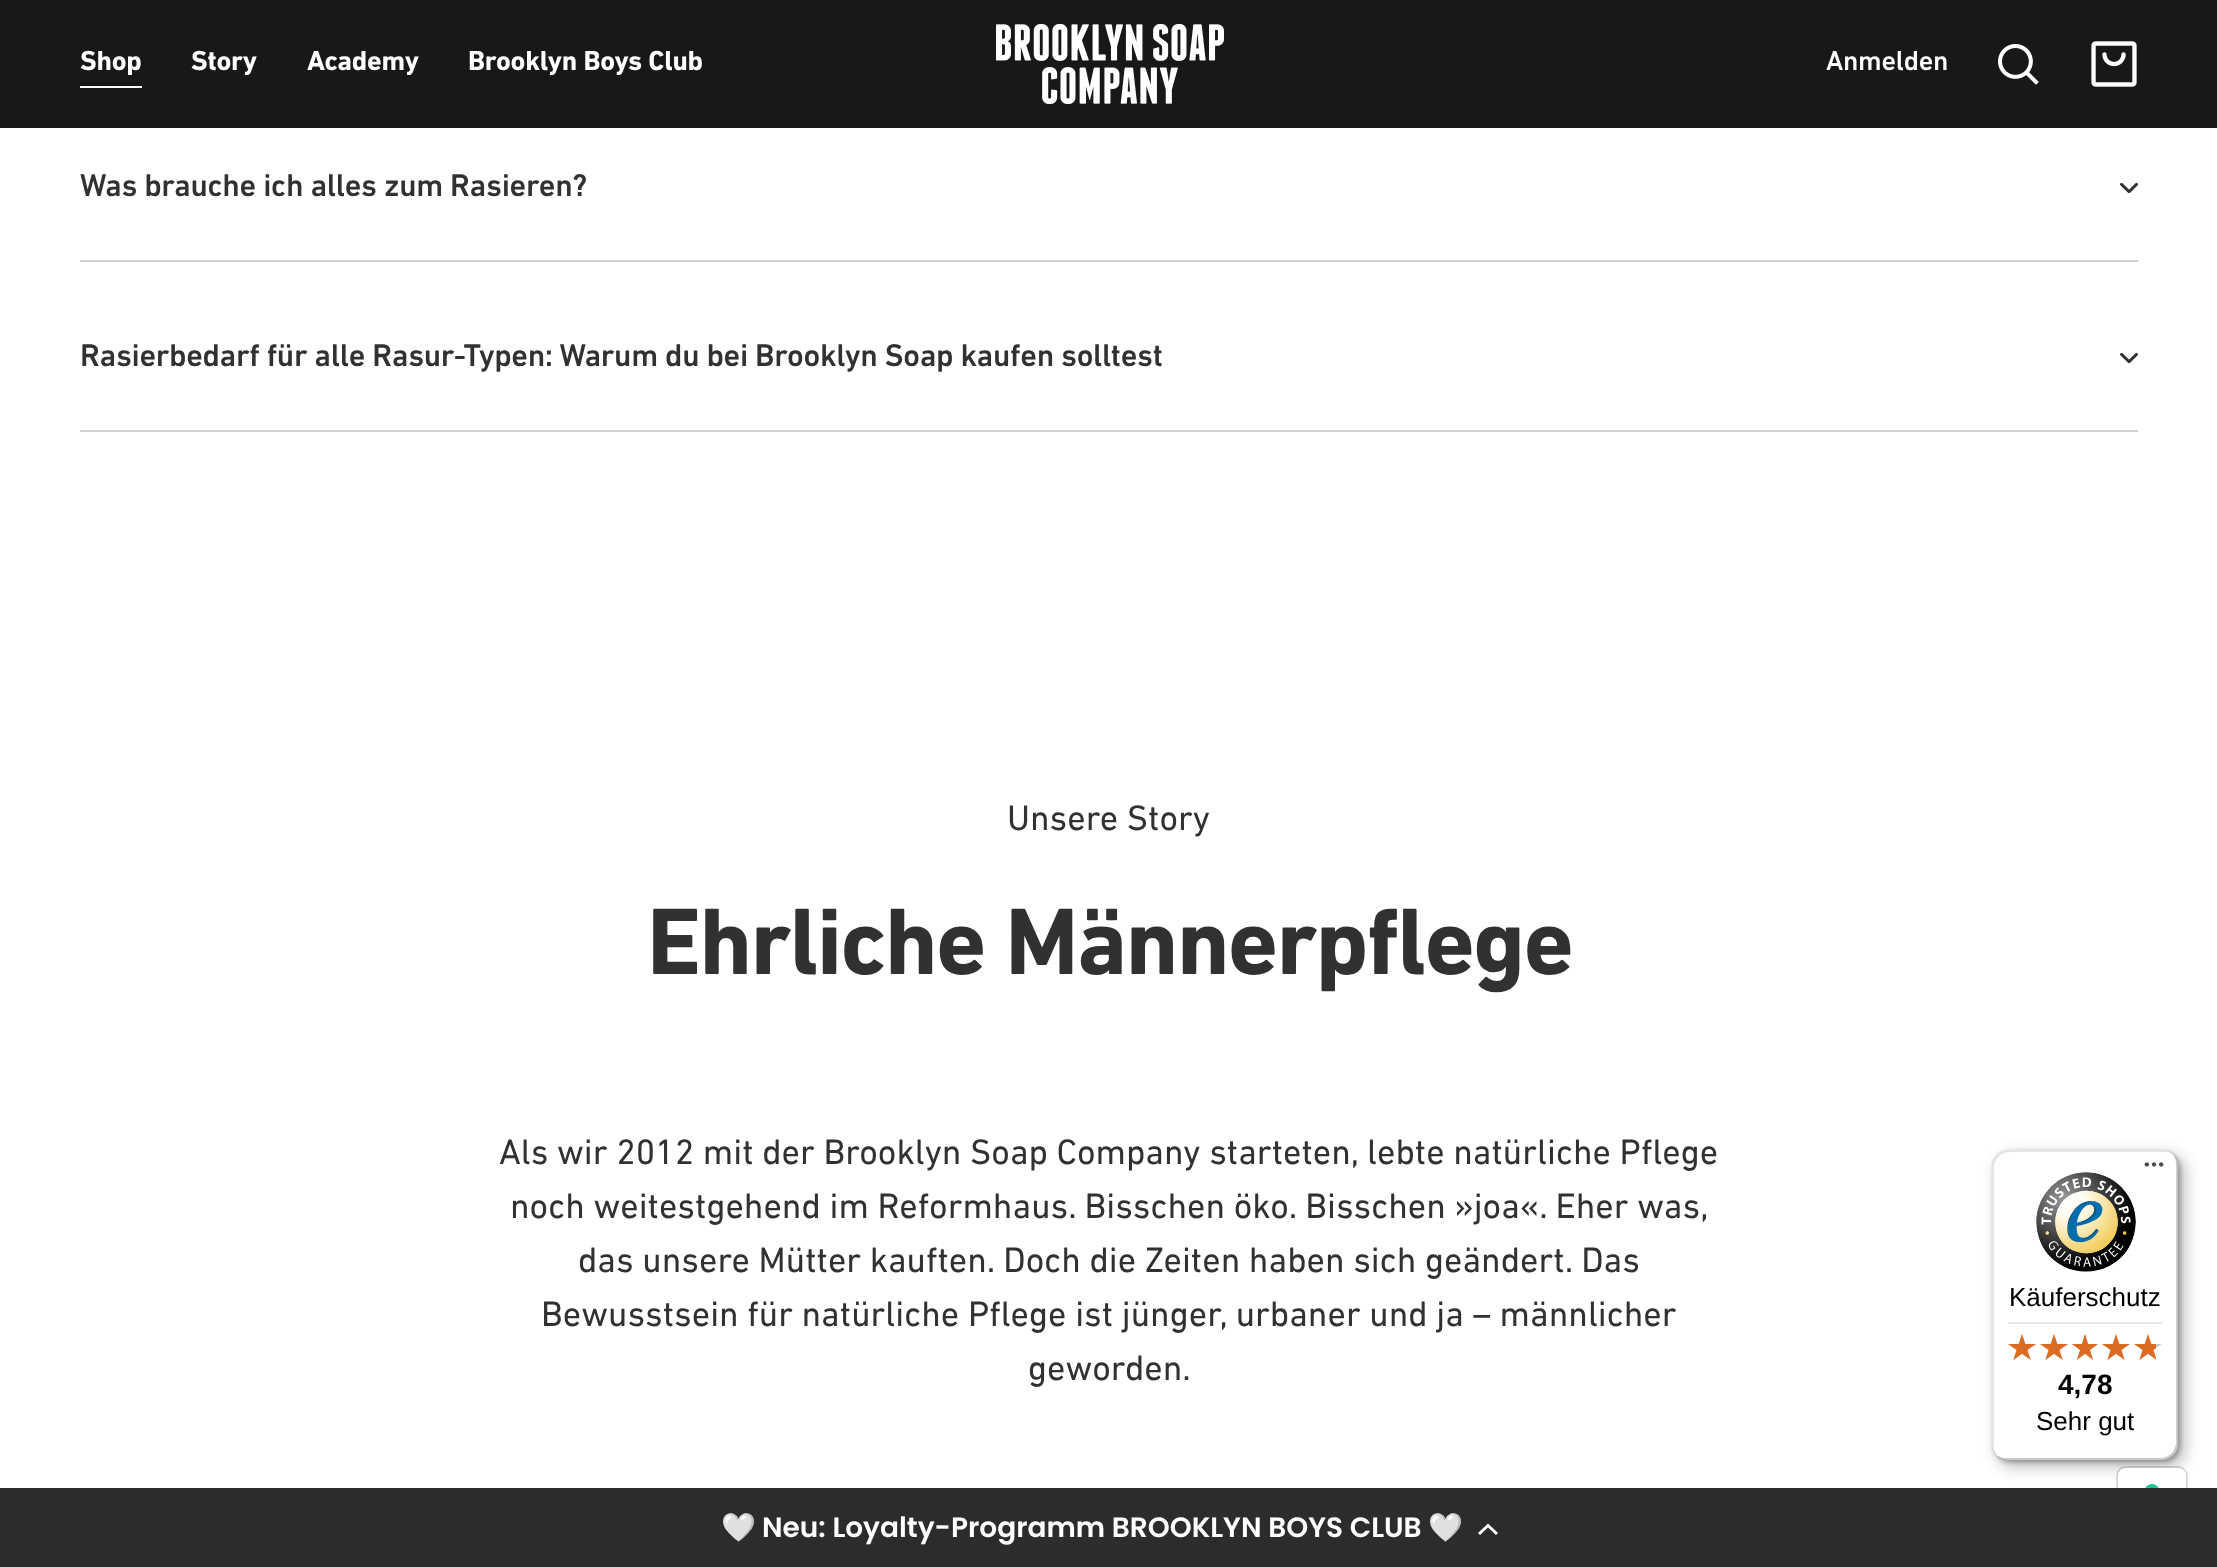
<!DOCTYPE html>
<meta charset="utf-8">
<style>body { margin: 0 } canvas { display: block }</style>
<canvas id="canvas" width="2217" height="1567"></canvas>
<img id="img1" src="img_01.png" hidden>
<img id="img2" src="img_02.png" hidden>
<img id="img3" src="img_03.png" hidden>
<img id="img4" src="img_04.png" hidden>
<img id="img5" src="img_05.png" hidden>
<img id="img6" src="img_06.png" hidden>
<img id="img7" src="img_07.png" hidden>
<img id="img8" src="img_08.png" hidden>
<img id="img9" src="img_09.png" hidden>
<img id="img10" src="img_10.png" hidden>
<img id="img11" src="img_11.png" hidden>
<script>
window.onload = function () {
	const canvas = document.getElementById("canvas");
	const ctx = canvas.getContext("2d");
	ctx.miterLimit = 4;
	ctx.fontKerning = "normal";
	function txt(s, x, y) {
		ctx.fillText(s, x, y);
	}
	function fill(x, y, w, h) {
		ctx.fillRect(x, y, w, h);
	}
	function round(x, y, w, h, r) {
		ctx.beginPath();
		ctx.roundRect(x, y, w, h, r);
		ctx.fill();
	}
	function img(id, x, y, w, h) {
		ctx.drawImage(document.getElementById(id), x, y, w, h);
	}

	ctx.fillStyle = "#FFFFFF";
	fill(0, 0, 2217, 1567);
	ctx.fillStyle = "#181818";
	fill(0, 0, 2217, 128);
	ctx.fillStyle = "#FFFFFF";
	fill(80, 86, 62, 2);
	img("img1", 996, 24, 228, 80);
	img("img2", 1998, 44, 41, 41);
	img("img3", 2091, 41, 46, 46);
	ctx.fillStyle = "#CFCFCF";
	fill(80, 260, 2058, 2);
	img("img4", 2120, 182, 18, 12);
	fill(80, 430, 2058, 2);
	img("img4", 2120, 352, 18, 12);
	ctx.fillStyle = "rgba(0, 0, 0, 0.15)";
	ctx.filter = "blur(8px)";
	ctx.beginPath();
	ctx.roundRect(1998, 1156, 186, 310, 16);
	ctx.fill();
	ctx.filter = "none";
	ctx.filter = "blur(2px)";
	ctx.beginPath();
	ctx.roundRect(1994, 1152, 186, 310, 16);
	ctx.fill();
	ctx.filter = "none";
	ctx.fillStyle = "rgba(0, 0, 0, 0.1)";
	ctx.beginPath();
	ctx.moveTo(2010, 1152);
	ctx.lineTo(2164, 1152);
	ctx.bezierCurveTo(2168, 1152, 2171, 1153, 2174, 1155);
	ctx.bezierCurveTo(2171, 1152, 2167, 1150, 2162, 1150);
	ctx.lineTo(2008, 1150);
	ctx.bezierCurveTo(1999, 1150, 1992, 1157, 1992, 1166);
	ctx.lineTo(1992, 1444);
	ctx.bezierCurveTo(1992, 1449, 1994, 1453, 1997, 1456);
	ctx.bezierCurveTo(1995, 1453, 1994, 1450, 1994, 1446);
	ctx.lineTo(1994, 1168);
	ctx.bezierCurveTo(1994, 1159, 2001, 1152, 2010, 1152);
	ctx.closePath();
	ctx.fill();
	ctx.fillStyle = "rgba(0, 0, 0, 0.2)";
	ctx.beginPath();
	ctx.moveTo(1996, 1455);
	ctx.bezierCurveTo(1999, 1458, 2003, 1460, 2008, 1460);
	ctx.lineTo(2162, 1460);
	ctx.bezierCurveTo(2171, 1460, 2178, 1453, 2178, 1444);
	ctx.lineTo(2178, 1166);
	ctx.bezierCurveTo(2178, 1161, 2176, 1157, 2173, 1154);
	ctx.bezierCurveTo(2175, 1157, 2176, 1160, 2176, 1164);
	ctx.lineTo(2176, 1442);
	ctx.bezierCurveTo(2176, 1451, 2169, 1458, 2160, 1458);
	ctx.lineTo(2006, 1458);
	ctx.bezierCurveTo(2002, 1458, 1999, 1457, 1996, 1455);
	ctx.closePath();
	ctx.fill();
	ctx.fillStyle = "rgba(0, 0, 0, 0.15)";
	ctx.filter = "blur(8px)";
	ctx.beginPath();
	ctx.roundRect(1998, 1156, 186, 310, 16);
	ctx.fill();
	ctx.filter = "none";
	ctx.filter = "blur(2px)";
	ctx.beginPath();
	ctx.roundRect(1994, 1152, 186, 310, 16);
	ctx.fill();
	ctx.filter = "none";
	ctx.fillStyle = "#FFFFFF";
	round(1992, 1150, 186, 310, 16);
	ctx.fillStyle = "rgba(0, 0, 0, 0.1)";
	ctx.beginPath();
	ctx.moveTo(2010, 1152);
	ctx.lineTo(2164, 1152);
	ctx.bezierCurveTo(2168, 1152, 2171, 1153, 2174, 1155);
	ctx.bezierCurveTo(2171, 1152, 2167, 1150, 2162, 1150);
	ctx.lineTo(2008, 1150);
	ctx.bezierCurveTo(1999, 1150, 1992, 1157, 1992, 1166);
	ctx.lineTo(1992, 1444);
	ctx.bezierCurveTo(1992, 1449, 1994, 1453, 1997, 1456);
	ctx.bezierCurveTo(1995, 1453, 1994, 1450, 1994, 1446);
	ctx.lineTo(1994, 1168);
	ctx.bezierCurveTo(1994, 1159, 2001, 1152, 2010, 1152);
	ctx.closePath();
	ctx.fill();
	ctx.fillStyle = "rgba(0, 0, 0, 0.2)";
	ctx.beginPath();
	ctx.moveTo(1996, 1455);
	ctx.bezierCurveTo(1999, 1458, 2003, 1460, 2008, 1460);
	ctx.lineTo(2162, 1460);
	ctx.bezierCurveTo(2171, 1460, 2178, 1453, 2178, 1444);
	ctx.lineTo(2178, 1166);
	ctx.bezierCurveTo(2178, 1161, 2176, 1157, 2173, 1154);
	ctx.bezierCurveTo(2175, 1157, 2176, 1160, 2176, 1164);
	ctx.lineTo(2176, 1442);
	ctx.bezierCurveTo(2176, 1451, 2169, 1458, 2160, 1458);
	ctx.lineTo(2006, 1458);
	ctx.bezierCurveTo(2002, 1458, 1999, 1457, 1996, 1455);
	ctx.closePath();
	ctx.fill();
	ctx.fillStyle = "rgba(50, 50, 50, 0.2)";
	ctx.beginPath();
	ctx.moveTo(1997, 1455);
	ctx.bezierCurveTo(2000, 1458, 2004, 1460, 2008, 1460);
	ctx.lineTo(2162, 1460);
	ctx.bezierCurveTo(2171, 1460, 2178, 1453, 2178, 1444);
	ctx.lineTo(2178, 1166);
	ctx.bezierCurveTo(2178, 1162, 2176, 1158, 2173, 1155);
	ctx.bezierCurveTo(2176, 1158, 2177, 1161, 2177, 1165);
	ctx.lineTo(2177, 1443);
	ctx.bezierCurveTo(2177, 1452, 2170, 1459, 2161, 1459);
	ctx.lineTo(2007, 1459);
	ctx.bezierCurveTo(2003, 1459, 2000, 1458, 1997, 1455);
	ctx.closePath();
	ctx.fill();
	ctx.fillStyle = "rgba(255, 255, 255, 0.3)";
	ctx.beginPath();
	ctx.moveTo(1997, 1455);
	ctx.bezierCurveTo(2000, 1458, 2004, 1460, 2008, 1460);
	ctx.lineTo(2162, 1460);
	ctx.bezierCurveTo(2171, 1460, 2178, 1453, 2178, 1444);
	ctx.lineTo(2178, 1166);
	ctx.bezierCurveTo(2178, 1162, 2176, 1158, 2173, 1155);
	ctx.bezierCurveTo(2176, 1158, 2177, 1161, 2177, 1165);
	ctx.lineTo(2177, 1443);
	ctx.bezierCurveTo(2177, 1452, 2170, 1459, 2161, 1459);
	ctx.lineTo(2007, 1459);
	ctx.bezierCurveTo(2003, 1459, 2000, 1458, 1997, 1455);
	ctx.closePath();
	ctx.fill();
	img("img5", 2144, 1162, 20, 5);
	img("img6", 2036, 1172, 100, 100);
	ctx.fillStyle = "#E5E5E5";
	fill(2008, 1322, 154, 2);
	img("img7", 2008, 1334, 28, 26);
	img("img7", 2040, 1334, 28, 26);
	img("img8", 2072, 1334, 26, 26);
	img("img7", 2102, 1334, 28, 26);
	img("img7", 2134, 1334, 28, 26);
	img("img9", 2008, 1334, 28, 26);
	img("img9", 2040, 1334, 28, 26);
	img("img10", 2072, 1334, 26, 26);
	img("img9", 2102, 1334, 28, 26);
	img("img11", 2134, 1334, 22, 26);
	ctx.beginPath();
	ctx.roundRect(2117, 1467, 70, 70, 9);
	ctx.strokeStyle = "rgba(0, 0, 0, 0.15)";
	ctx.lineWidth = 2;
	ctx.stroke();
	ctx.fillStyle = "#FFFFFF";
	round(2118, 1468, 68, 68, 8);
	ctx.fillStyle = "#1CC691";
	ctx.beginPath();
	ctx.moveTo(2152, 1484);
	ctx.bezierCurveTo(2159, 1484, 2162.5, 1493.5, 2157.5, 1498);
	ctx.lineTo(2159, 1520);
	ctx.lineTo(2145, 1520);
	ctx.lineTo(2146.5, 1498);
	ctx.bezierCurveTo(2141.5, 1493.5, 2145, 1484, 2152, 1484);
	ctx.closePath();
	ctx.fill("evenodd");
	ctx.fillStyle = "#2C2C2C";
	fill(0, 1488, 2217, 79);
	ctx.fillStyle = "#FFFFFF";
	ctx.beginPath();
	ctx.moveTo(1488, 1527.5);
	ctx.lineTo(1480, 1535);
	ctx.lineTo(1478, 1533);
	ctx.lineTo(1488, 1523.5);
	ctx.lineTo(1498, 1533);
	ctx.lineTo(1496, 1535);
	ctx.closePath();
	ctx.fill();
	ctx.letterSpacing = "-0.25px";
	ctx.font = "bold 28px DIN Next";
	txt("Shop", 80, 70);
	txt("Story", 191, 70);
	txt("Academy", 307, 70);
	txt("Brooklyn Boys Club", 468, 70);
	ctx.font = "500 28px DIN Next";
	txt("Anmelden", 1826, 70);
	ctx.letterSpacing = "-0.32px";
	ctx.font = "500 32px DIN Next";
	ctx.fillStyle = "#313131";
	txt("Was brauche ich alles zum Rasieren?", 80, 196);
	txt("Rasierbedarf für alle Rasur-Typen: Warum du bei Brooklyn Soap kaufen solltest", 80, 366);
	ctx.letterSpacing = "0px";
	ctx.font = "36px DIN Next";
	txt("Unsere Story", 1007, 830);
	ctx.letterSpacing = "-1.9px";
	ctx.font = "bold 96px DIN Next";
	txt("Ehrliche Männerpflege", 647, 974);
	ctx.letterSpacing = "0px";
	ctx.font = "36px DIN Next";
	txt("Als wir 2012 mit der Brooklyn Soap Company starteten, lebte natürliche Pflege", 499, 1164);
	txt("noch weitestgehend im Reformhaus. Bisschen öko. Bisschen »joa«. Eher was,", 510, 1218);
	txt("das unsere Mütter kauften. Doch die Zeiten haben sich geändert. Das", 578, 1272);
	txt("Bewusstsein für natürliche Pflege ist jünger, urbaner und ja – männlicher", 541, 1326);
	txt("geworden.", 1028, 1380);
	ctx.font = "26px Liberation Sans";
	ctx.fillStyle = "#000000";
	txt("Käuferschutz", 2009, 1306);
	ctx.font = "bold 28px Liberation Sans";
	txt("4,78", 2058, 1394);
	ctx.font = "26px Liberation Sans";
	txt("Sehr gut", 2036, 1430);
	ctx.font = "bold 28px Noto Color Emoji";
	ctx.fillStyle = "#FFFFFF";
	txt("🤍", 721, 1537);
	ctx.font = "600 28px Poppins";
	txt("Neu: Loyalty-Programm BROOKLYN BOYS CLUB", 762, 1537);
	ctx.font = "bold 28px Noto Color Emoji";
	txt("🤍", 1428, 1537);
};
</script>
